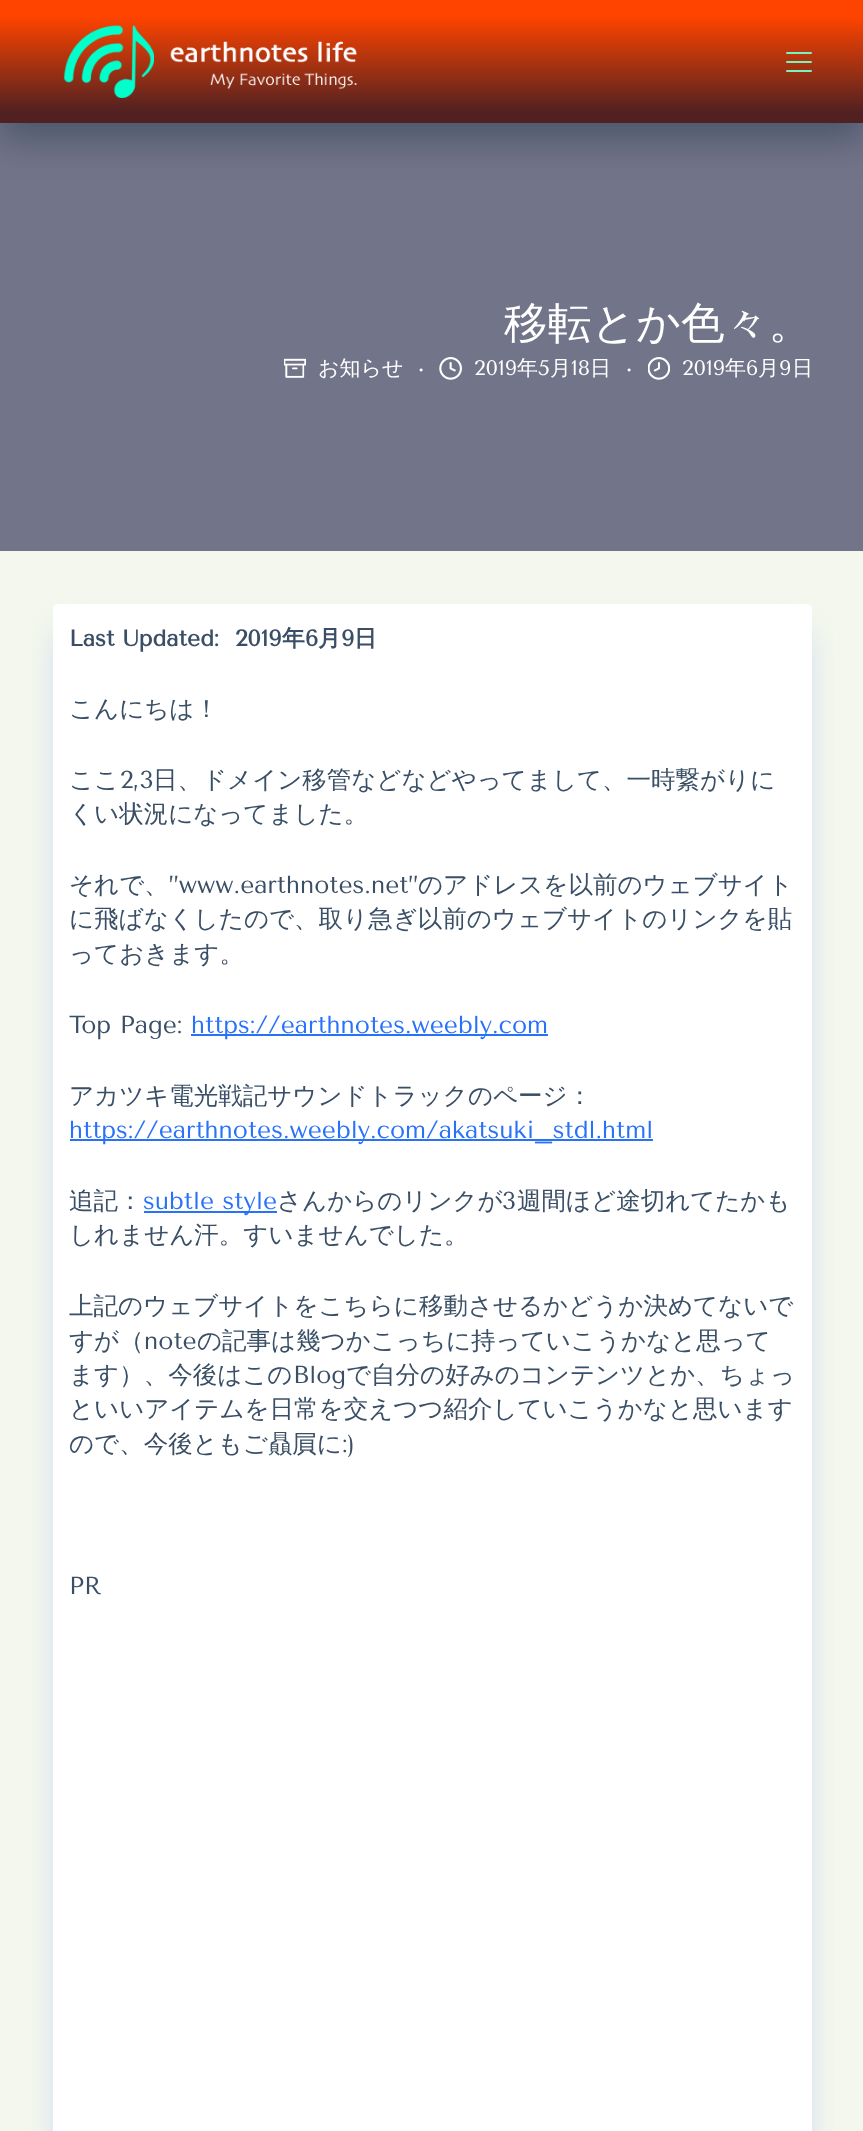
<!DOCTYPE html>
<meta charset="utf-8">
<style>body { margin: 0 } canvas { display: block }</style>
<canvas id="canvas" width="863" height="2131"></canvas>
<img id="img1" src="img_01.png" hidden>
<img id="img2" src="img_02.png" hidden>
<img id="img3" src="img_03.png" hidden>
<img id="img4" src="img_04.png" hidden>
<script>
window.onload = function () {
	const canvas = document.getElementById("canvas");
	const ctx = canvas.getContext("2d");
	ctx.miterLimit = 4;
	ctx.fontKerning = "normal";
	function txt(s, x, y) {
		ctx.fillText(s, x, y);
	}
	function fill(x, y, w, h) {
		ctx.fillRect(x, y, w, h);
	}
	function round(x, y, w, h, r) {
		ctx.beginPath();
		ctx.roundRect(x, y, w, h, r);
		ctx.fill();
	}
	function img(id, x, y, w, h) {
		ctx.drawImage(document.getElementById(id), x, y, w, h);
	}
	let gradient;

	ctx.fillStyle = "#F3F7ED";
	fill(0, 0, 863, 2131);
	ctx.fillStyle = "#727489";
	fill(0, 123, 863, 428);
	ctx.fillStyle = "rgba(43, 61, 79, 0.53)";
	ctx.filter = "blur(17.5px)";
	ctx.beginPath();
	ctx.rect(0, 18, 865, 122);
	ctx.fill();
	ctx.filter = "none";
	gradient = ctx.createLinearGradient(432, 0, 432, 123);
	gradient.addColorStop(0.13, "#FF4400");
	gradient.addColorStop(0.91, "#512121");
	ctx.fillStyle = gradient;
	fill(0, 0, 863, 123);
	img("img1", 63, 25, 294, 73);
	ctx.fillStyle = "#77F4BC";
	round(786, 52, 26, 2, 1);
	round(786, 61, 26, 2, 1);
	round(786, 70, 26, 2, 1);
	img("img2", 284, 358, 22, 20);
	img("img3", 439, 357, 23, 23);
	img("img4", 648, 357, 22, 23);
	ctx.fillStyle = "rgba(163, 183, 255, 0.74)";
	ctx.filter = "blur(16px)";
	ctx.beginPath();
	ctx.rect(63, 635, 739, 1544);
	ctx.fill();
	ctx.filter = "none";
	ctx.fillStyle = "#FFFFFF";
	round(53, 604, 759, 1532, 5);
	ctx.fillStyle = "#2872FA";
	fill(191, 1034, 357, 2);
	fill(70, 1139, 583, 2);
	fill(144, 1211, 133, 2);
	ctx.font = "500 43.75px WenQuanYi Zen Hei";
	ctx.fillStyle = "#FFFFFF";
	txt("移転とか色々。", 504, 338);
	ctx.font = "500 21px WenQuanYi Zen Hei";
	txt("お知らせ", 318, 375);
	ctx.font = "7px Liberation Sans";
	txt("●", 419, 372);
	ctx.font = "21px Tenor Sans";
	txt("2019", 474, 375);
	ctx.font = "500 21px WenQuanYi Zen Hei";
	txt("年", 517, 375);
	ctx.font = "21px Tenor Sans";
	txt("5", 538, 375);
	ctx.font = "500 21px WenQuanYi Zen Hei";
	txt("月", 550, 375);
	ctx.font = "21px Tenor Sans";
	txt("18", 571, 375);
	ctx.font = "500 21px WenQuanYi Zen Hei";
	txt("日", 590, 375);
	ctx.font = "7px Liberation Sans";
	txt("●", 627, 372);
	ctx.font = "21px Tenor Sans";
	txt("2019", 682, 375);
	ctx.font = "500 21px WenQuanYi Zen Hei";
	txt("年", 725, 375);
	ctx.font = "21px Tenor Sans";
	txt("6", 746, 375);
	ctx.font = "500 21px WenQuanYi Zen Hei";
	txt("月", 758, 375);
	ctx.font = "21px Tenor Sans";
	txt("9", 779, 375);
	ctx.font = "500 21px WenQuanYi Zen Hei";
	txt("日", 792, 375);
	ctx.font = "bold 22.75px Tenor Sans";
	ctx.fillStyle = "#3A4F66";
	txt("Last Updated:  2019", 69, 646);
	ctx.font = "bold 22.75px WenQuanYi Zen Hei";
	txt("年", 282, 646);
	ctx.font = "bold 22.75px Tenor Sans";
	txt("6", 305, 646);
	ctx.font = "bold 22.75px WenQuanYi Zen Hei";
	txt("月", 318, 646);
	ctx.font = "bold 22.75px Tenor Sans";
	txt("9", 341, 646);
	ctx.font = "bold 22.75px WenQuanYi Zen Hei";
	txt("日", 354, 646);
	ctx.font = "500 24.5px WenQuanYi Zen Hei";
	txt("こんにちは！", 69, 717);
	txt("ここ", 69, 788);
	ctx.font = "24.5px Tenor Sans";
	txt("2,3", 120, 788);
	ctx.font = "500 24.5px WenQuanYi Zen Hei";
	txt("日、ドメイン移管などなどやってまして、一時繋がりに", 153, 788);
	txt("くい状況になってました。", 69, 822);
	txt("それで、", 69, 893);
	ctx.font = "24.5px Tenor Sans";
	txt("”www.earthnotes.net”", 169, 893);
	ctx.font = "500 24.5px WenQuanYi Zen Hei";
	txt("のアドレスを以前のウェブサイト", 418, 893);
	txt("に飛ばなくしたので、取り急ぎ以前のウェブサイトのリンクを貼", 69, 927);
	txt("っておきます。", 69, 962);
	ctx.font = "24.5px Tenor Sans";
	txt("Top Page:", 69, 1033);
	ctx.fillStyle = "#2872FA";
	txt("https://earthnotes.weebly.com", 191, 1033);
	ctx.font = "500 24.5px WenQuanYi Zen Hei";
	ctx.fillStyle = "#3A4F66";
	txt("アカツキ電光戦記サウンドトラックのページ：", 69, 1104);
	ctx.font = "24.5px Tenor Sans";
	ctx.fillStyle = "#2872FA";
	txt("https://earthnotes.weebly.com/akatsuki_stdl.html", 69, 1138);
	ctx.font = "500 24.5px WenQuanYi Zen Hei";
	ctx.fillStyle = "#3A4F66";
	txt("追記：", 69, 1209);
	ctx.font = "24.5px Tenor Sans";
	ctx.fillStyle = "#2872FA";
	txt("subtle style", 143, 1209);
	ctx.font = "500 24.5px WenQuanYi Zen Hei";
	ctx.fillStyle = "#3A4F66";
	txt("さんからのリンクが", 277, 1209);
	ctx.font = "24.5px Tenor Sans";
	txt("3", 502, 1209);
	ctx.font = "500 24.5px WenQuanYi Zen Hei";
	txt("週間ほど途切れてたかも", 517, 1209);
	txt("しれません汗。すいませんでした。", 69, 1243);
	txt("上記のウェブサイトをこちらに移動させるかどうか決めてないで", 69, 1314);
	txt("すが（", 69, 1349);
	ctx.font = "24.5px Tenor Sans";
	txt("note", 144, 1349);
	ctx.font = "500 24.5px WenQuanYi Zen Hei";
	txt("の記事は幾つかこっちに持っていこうかなと思って", 197, 1349);
	txt("ます）、今後はこの", 69, 1383);
	ctx.font = "24.5px Tenor Sans";
	txt("Blog", 293, 1383);
	ctx.font = "500 24.5px WenQuanYi Zen Hei";
	txt("で自分の好みのコンテンツとか、ちょっ", 346, 1383);
	txt("といいアイテムを日常を交えつつ紹介していこうかなと思います", 69, 1417);
	txt("ので、今後ともご贔屓に", 69, 1452);
	ctx.font = "24.5px Tenor Sans";
	txt(":)", 342, 1452);
	txt("PR", 69, 1594);
};
</script>
